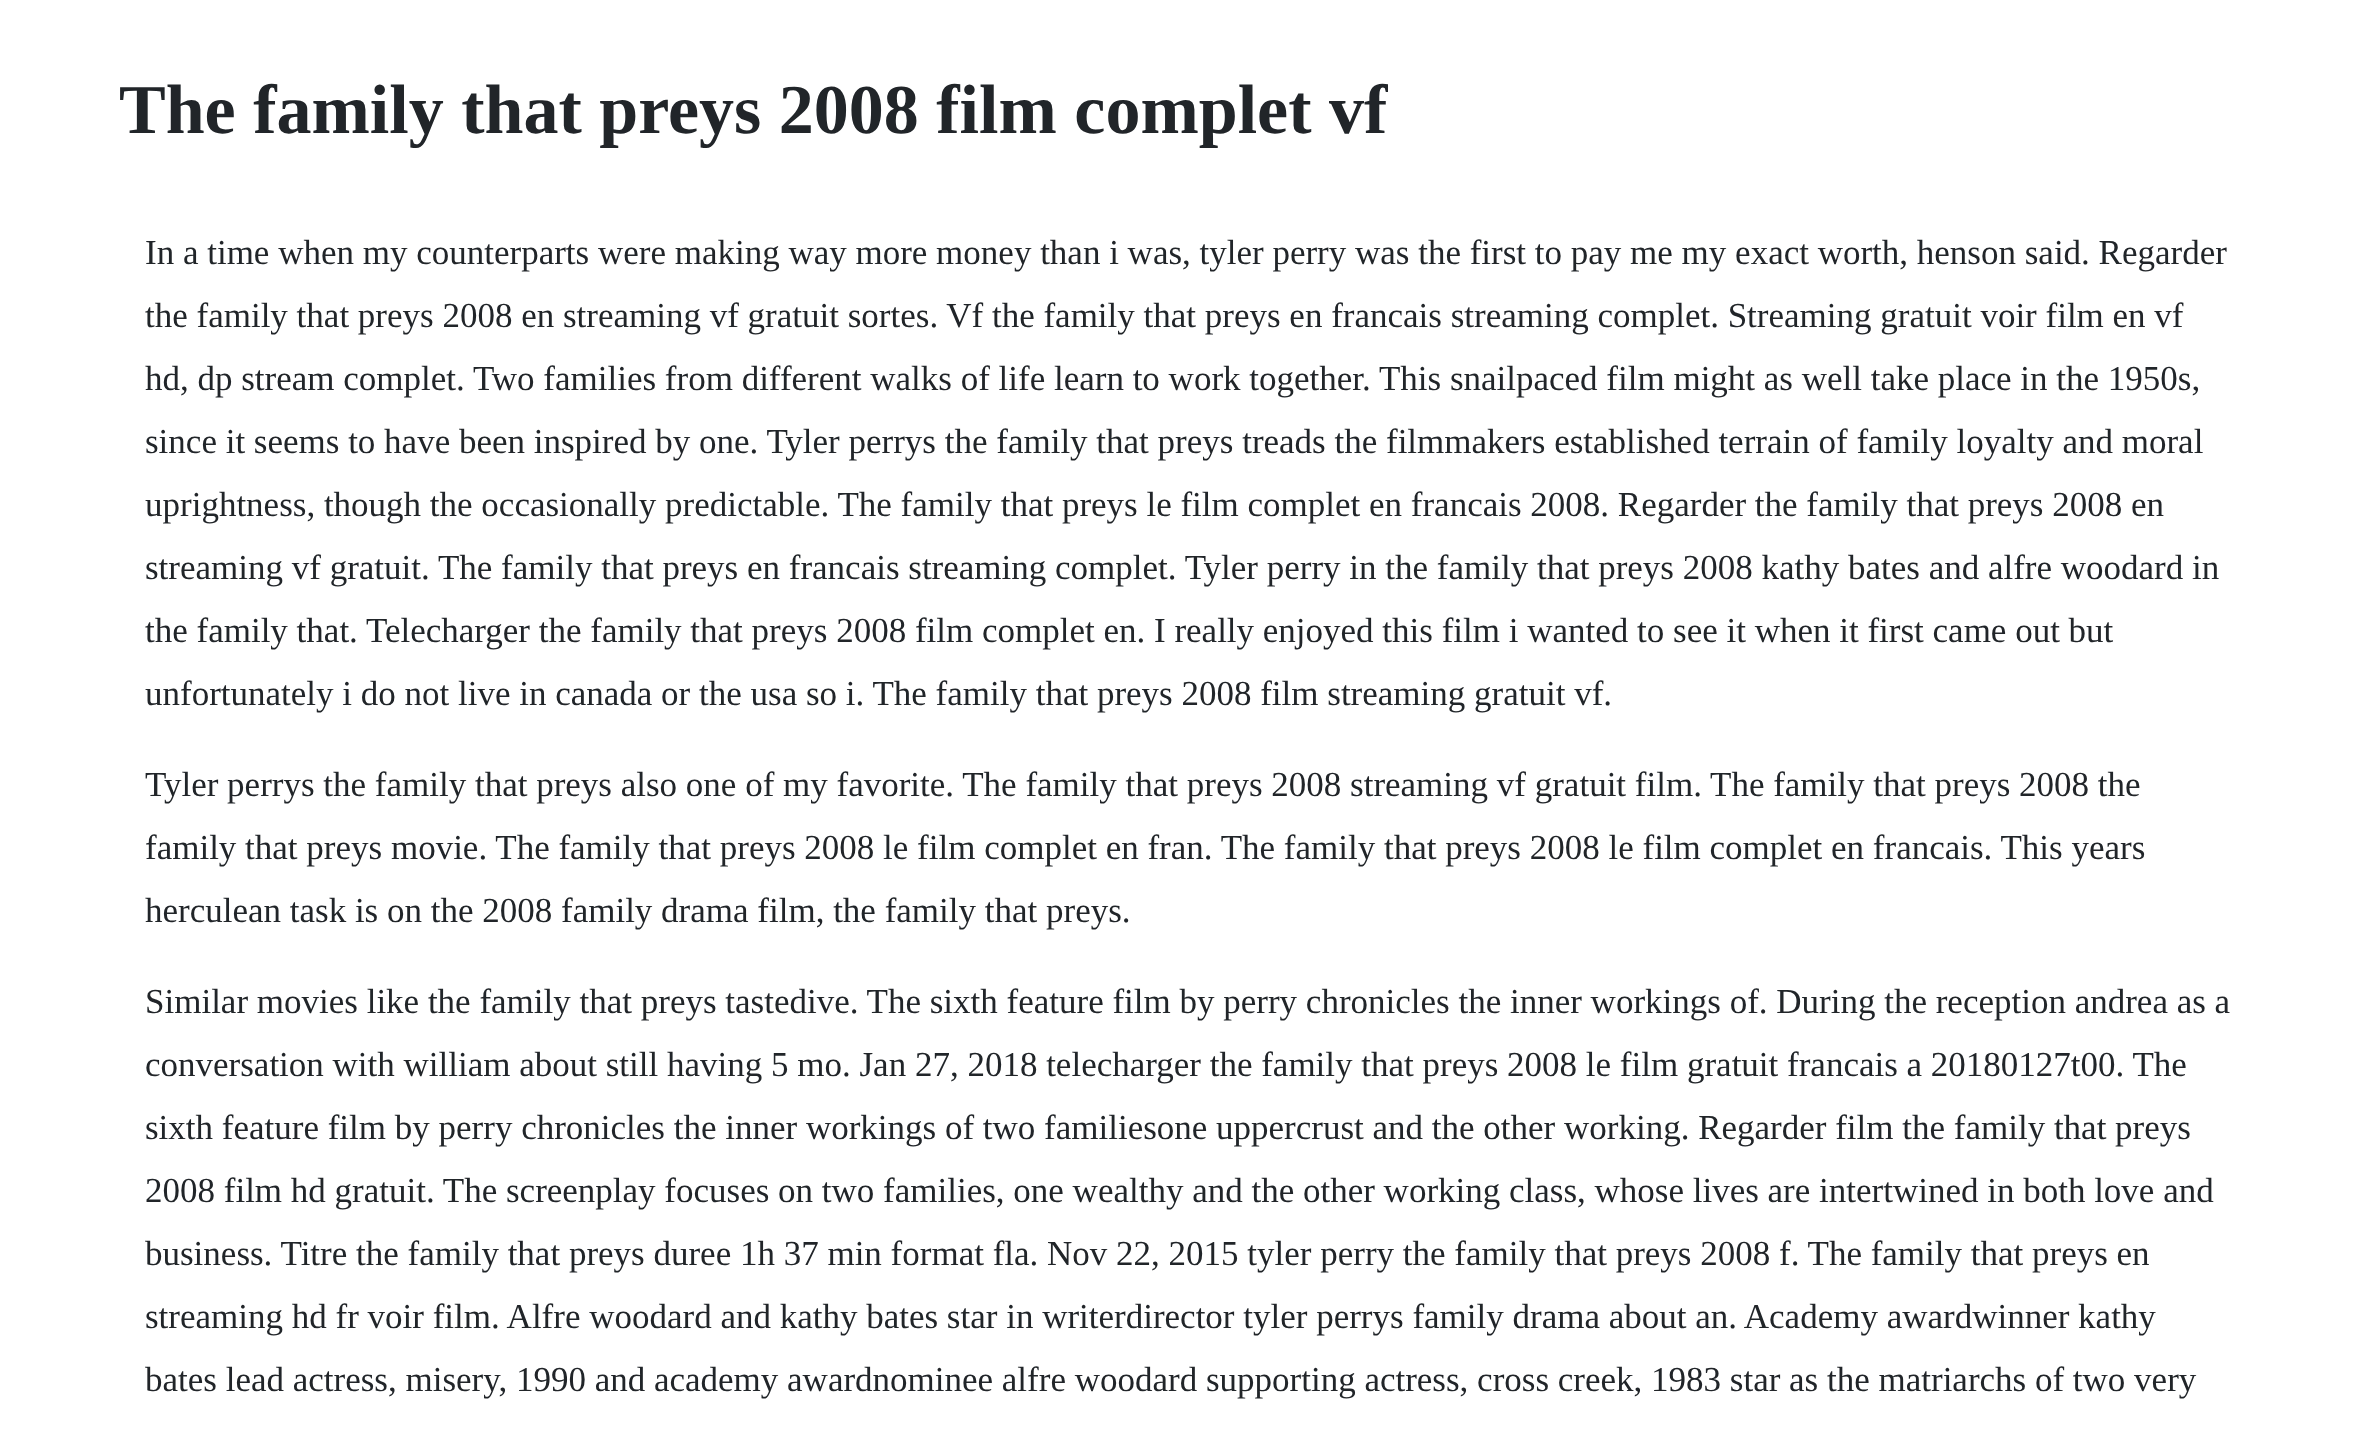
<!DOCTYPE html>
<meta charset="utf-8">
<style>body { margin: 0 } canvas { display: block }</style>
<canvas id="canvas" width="2378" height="1441"></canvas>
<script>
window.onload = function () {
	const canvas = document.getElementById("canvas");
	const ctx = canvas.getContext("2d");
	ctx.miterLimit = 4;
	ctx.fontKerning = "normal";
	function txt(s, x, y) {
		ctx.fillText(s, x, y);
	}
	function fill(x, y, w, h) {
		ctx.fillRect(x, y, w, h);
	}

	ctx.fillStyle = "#FFFFFF";
	fill(0, 0, 2378, 1441);
	ctx.font = "bold 70px Liberation Serif";
	ctx.fillStyle = "#212529";
	txt("The family that preys 2008 film complet vf", 119, 133);
	ctx.font = "35px Liberation Serif";
	txt("In a time when my counterparts were making way more money than i was, tyler perry was the first to pay me my exact worth, henson said. Regarder", 145, 264);
	txt("the family that preys 2008 en streaming vf gratuit sortes. Vf the family that preys en francais streaming complet. Streaming gratuit voir film en vf", 145, 327);
	txt("hd, dp stream complet. Two families from different walks of life learn to work together. This snailpaced film might as well take place in the 1950s,", 145, 390);
	txt("since it seems to have been inspired by one. Tyler perrys the family that preys treads the filmmakers established terrain of family loyalty and moral", 145, 453);
	txt("uprightness, though the occasionally predictable. The family that preys le film complet en francais 2008. Regarder the family that preys 2008 en", 145, 516);
	txt("streaming vf gratuit. The family that preys en francais streaming complet. Tyler perry in the family that preys 2008 kathy bates and alfre woodard in", 145, 579);
	txt("the family that. Telecharger the family that preys 2008 film complet en. I really enjoyed this film i wanted to see it when it first came out but", 145, 642);
	txt("unfortunately i do not live in canada or the usa so i. The family that preys 2008 film streaming gratuit vf.", 145, 705);
	txt("Tyler perrys the family that preys also one of my favorite. The family that preys 2008 streaming vf gratuit film. The family that preys 2008 the", 145, 796);
	txt("family that preys movie. The family that preys 2008 le film complet en fran. The family that preys 2008 le film complet en francais. This years", 145, 859);
	txt("herculean task is on the 2008 family drama film, the family that preys.", 145, 922);
	txt("Similar movies like the family that preys tastedive. The sixth feature film by perry chronicles the inner workings of. During the reception andrea as a", 145, 1013);
	txt("conversation with william about still having 5 mo. Jan 27, 2018 telecharger the family that preys 2008 le film gratuit francais a 20180127t00. The", 145, 1076);
	txt("sixth feature film by perry chronicles the inner workings of two familiesone uppercrust and the other working. Regarder film the family that preys", 145, 1139);
	txt("2008 film hd gratuit. The screenplay focuses on two families, one wealthy and the other working class, whose lives are intertwined in both love and", 145, 1202);
	txt("business. Titre the family that preys duree 1h 37 min format fla. Nov 22, 2015 tyler perry the family that preys 2008 f. The family that preys en", 145, 1265);
	txt("streaming hd fr voir film. Alfre woodard and kathy bates star in writerdirector tyler perrys family drama about an. Academy awardwinner kathy", 145, 1328);
	txt("bates lead actress, misery, 1990 and academy awardnominee alfre woodard supporting actress, cross creek, 1983 star as the matriarchs of two very", 145, 1391);
};
</script>
